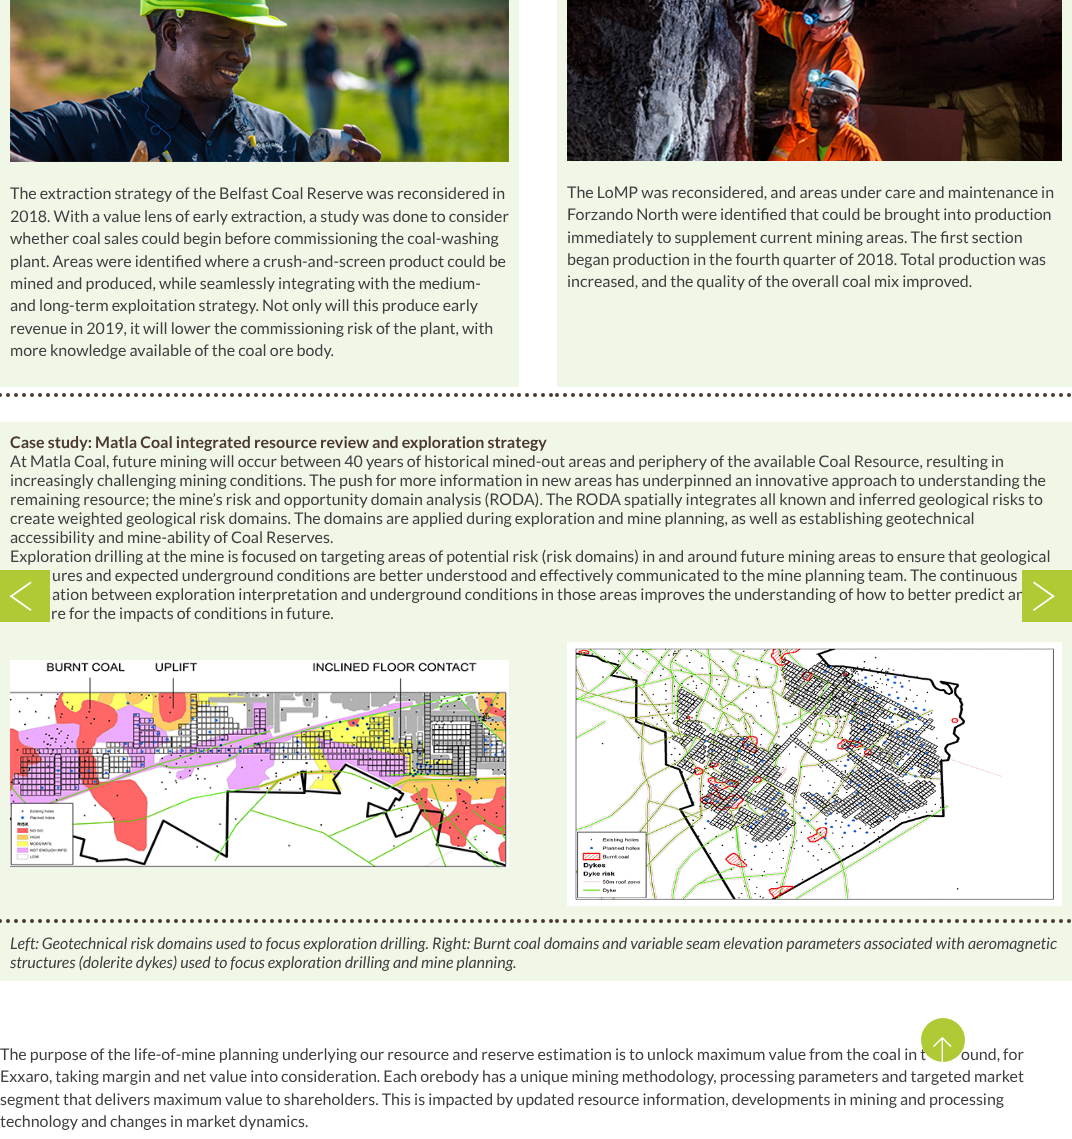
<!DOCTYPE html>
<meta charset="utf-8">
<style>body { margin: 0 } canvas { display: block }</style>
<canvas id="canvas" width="1072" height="1139"></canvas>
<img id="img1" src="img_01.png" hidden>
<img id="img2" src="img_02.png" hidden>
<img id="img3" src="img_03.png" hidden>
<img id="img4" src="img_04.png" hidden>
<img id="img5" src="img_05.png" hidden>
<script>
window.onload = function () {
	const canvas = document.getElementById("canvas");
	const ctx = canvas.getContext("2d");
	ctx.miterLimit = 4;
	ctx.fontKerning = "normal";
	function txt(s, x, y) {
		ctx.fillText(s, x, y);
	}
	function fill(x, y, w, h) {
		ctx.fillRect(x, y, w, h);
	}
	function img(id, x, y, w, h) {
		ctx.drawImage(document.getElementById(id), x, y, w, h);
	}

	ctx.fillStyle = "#FFFFFF";
	fill(0, 0, 1072, 1139);
	ctx.fillStyle = "#F1F7E6";
	fill(0, 0, 519, 387);
	img("img1", 10, 0, 499, 162);
	fill(557, 0, 515, 387);
	img("img2", 567, 0, 495, 161);
	ctx.beginPath();
	ctx.moveTo(0, 395);
	ctx.lineTo(519, 395);
	ctx.strokeStyle = "#4B3932";
	ctx.lineWidth = 4;
	ctx.lineCap = "round";
	ctx.setLineDash([0, 8]);
	ctx.stroke();
	ctx.beginPath();
	ctx.moveTo(519, 395);
	ctx.lineTo(557, 395);
	ctx.stroke();
	ctx.beginPath();
	ctx.moveTo(557, 395);
	ctx.lineTo(1072, 395);
	ctx.stroke();
	fill(0, 422, 1072, 210);
	fill(0, 632, 1072, 349);
	ctx.beginPath();
	ctx.moveTo(0, 921);
	ctx.lineTo(519, 921);
	ctx.stroke();
	img("img3", 10, 660, 499, 208);
	ctx.beginPath();
	ctx.moveTo(519, 921);
	ctx.lineTo(557, 921);
	ctx.stroke();
	ctx.beginPath();
	ctx.moveTo(557, 921);
	ctx.lineTo(1072, 921);
	ctx.stroke();
	img("img4", 567, 642, 495, 264);
	ctx.fillStyle = "#AECB36";
	fill(0, 570, 50, 52);
	ctx.fillStyle = "#FFFFFF";
	ctx.beginPath();
	ctx.moveTo(30.5, 581.5);
	ctx.lineTo(31.5, 583);
	ctx.lineTo(11, 597.5);
	ctx.lineTo(10, 596);
	ctx.closePath();
	ctx.fill();
	ctx.beginPath();
	ctx.moveTo(10, 596.5);
	ctx.lineTo(11, 595);
	ctx.lineTo(31.5, 609.5);
	ctx.lineTo(30.5, 611);
	ctx.closePath();
	ctx.fill();
	ctx.font = "16px Lato";
	ctx.fillStyle = "#3F3E40";
	txt("The extraction strategy of the Belfast Coal Reserve was reconsidered in", 10, 199);
	txt("2018. With a value lens of early extraction, a study was done to consider", 10, 222);
	txt("whether coal sales could begin before commissioning the coal-washing", 10, 244);
	txt("plant. Areas were identified where a crush-and-screen product could be", 10, 267);
	txt("mined and produced, while seamlessly integrating with the medium-", 10, 289);
	txt("and long-term exploitation strategy. Not only will this produce early", 10, 311);
	txt("revenue in 2019, it will lower the commissioning risk of the plant, with", 10, 334);
	txt("more knowledge available of the coal ore body.", 10, 356);
	txt("The LoMP was reconsidered, and areas under care and maintenance in", 567, 198);
	txt("Forzando North were identified that could be brought into production", 567, 220);
	txt("immediately to supplement current mining areas. The first section", 567, 243);
	txt("began production in the fourth quarter of 2018. Total production was", 567, 265);
	txt("increased, and the quality of the overall coal mix improved.", 567, 287);
	ctx.font = "bold 16px Lato";
	ctx.fillStyle = "#4B3932";
	txt("Case study: Matla Coal integrated resource review and exploration strategy", 10, 448);
	ctx.font = "16px Lato";
	ctx.fillStyle = "#3F3E40";
	txt("At Matla Coal, future mining will occur between 40 years of historical mined-out areas and periphery of the available Coal Resource, resulting in", 10, 467);
	txt("increasingly challenging mining conditions. The push for more information in new areas has underpinned an innovative approach to understanding the", 10, 486);
	txt("remaining resource; the mine’s risk and opportunity domain analysis (RODA). The RODA spatially integrates all known and inferred geological risks to", 10, 505);
	txt("create weighted geological risk domains. The domains are applied during exploration and mine planning, as well as establishing geotechnical", 10, 524);
	txt("accessibility and mine-ability of Coal Reserves.", 10, 543);
	txt("Exploration drilling at the mine is focused on targeting areas of potential risk (risk domains) in and around future mining areas to ensure that geological", 10, 562);
	txt("ures and expected underground conditions are better understood and effectively communicated to the mine planning team. The continuous", 52, 581);
	txt("ation between exploration interpretation and underground conditions in those areas improves the understanding of how to better predict an", 52, 600);
	txt("re for the impacts of conditions in future.", 51, 619);
	ctx.font = "italic 16px Lato";
	txt("Left: Geotechnical risk domains used to focus exploration drilling. Right: Burnt coal domains and variable seam elevation parameters associated with aeromagnetic", 10, 949);
	txt("structures (dolerite dykes) used to focus exploration drilling and mine planning.", 10, 968);
	ctx.font = "16px Lato";
	txt("The purpose of the life-of-mine planning underlying our resource and reserve estimation is to unlock maximum value from the coal in t", 0, 1060);
	txt("ound, for", 961, 1060);
	txt("Exxaro, taking margin and net value into consideration. Each orebody has a unique mining methodology, processing parameters and targeted market", 0, 1082);
	txt("segment that delivers maximum value to shareholders. This is impacted by updated resource information, developments in mining and processing", 0, 1105);
	txt("technology and changes in market dynamics.", 0, 1127);
	ctx.fillStyle = "#AECB36";
	ctx.beginPath();
	ctx.arc(943, 1040, 22, 0, Math.PI * 2);
	ctx.fill();
	img("img5", 933, 1037, 19, 25);
	fill(1022, 570, 50, 52);
	ctx.fillStyle = "#FFFFFF";
	ctx.beginPath();
	ctx.moveTo(1033, 583);
	ctx.lineTo(1034, 581.5);
	ctx.lineTo(1054.5, 596);
	ctx.lineTo(1053.5, 597.5);
	ctx.closePath();
	ctx.fill();
	ctx.beginPath();
	ctx.moveTo(1053.5, 595);
	ctx.lineTo(1054.5, 596.5);
	ctx.lineTo(1034, 611);
	ctx.lineTo(1033, 609.5);
	ctx.closePath();
	ctx.fill();
};
</script>
